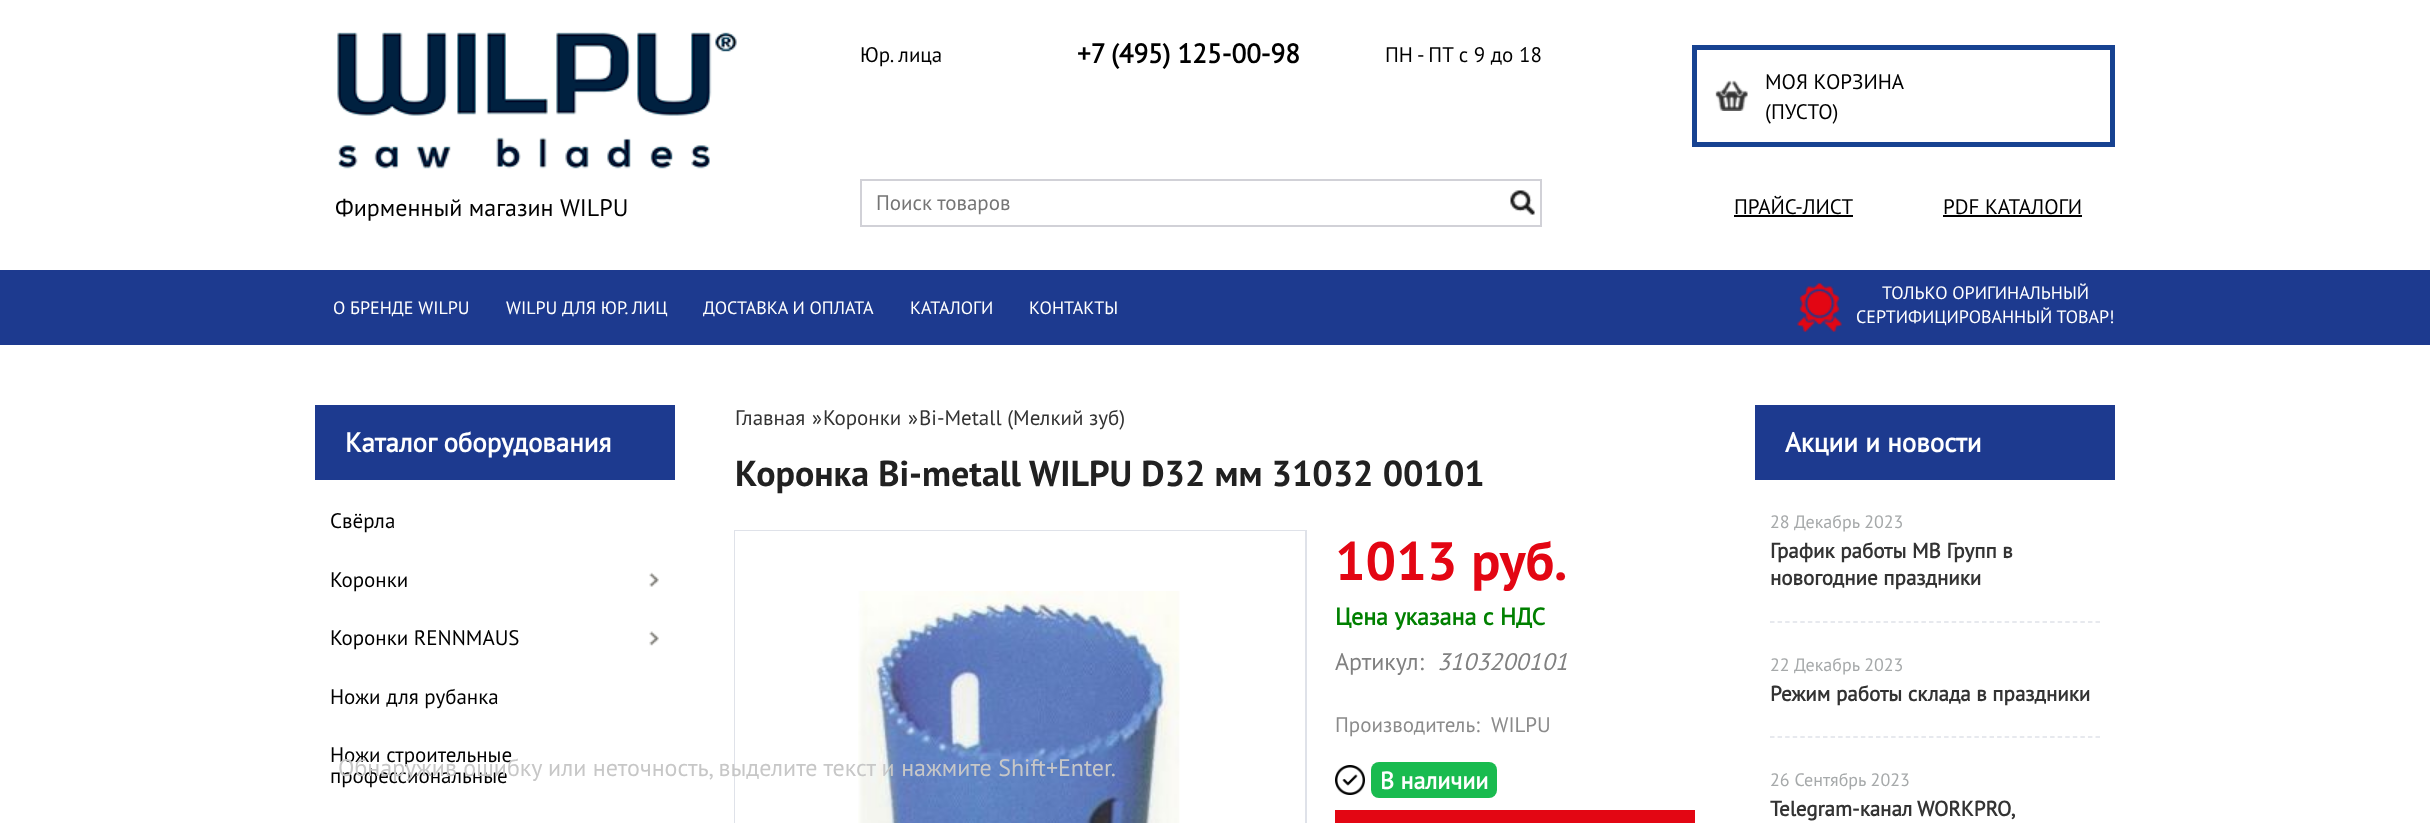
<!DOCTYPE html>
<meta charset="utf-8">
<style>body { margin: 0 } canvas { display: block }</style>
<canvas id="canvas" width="2430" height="823"></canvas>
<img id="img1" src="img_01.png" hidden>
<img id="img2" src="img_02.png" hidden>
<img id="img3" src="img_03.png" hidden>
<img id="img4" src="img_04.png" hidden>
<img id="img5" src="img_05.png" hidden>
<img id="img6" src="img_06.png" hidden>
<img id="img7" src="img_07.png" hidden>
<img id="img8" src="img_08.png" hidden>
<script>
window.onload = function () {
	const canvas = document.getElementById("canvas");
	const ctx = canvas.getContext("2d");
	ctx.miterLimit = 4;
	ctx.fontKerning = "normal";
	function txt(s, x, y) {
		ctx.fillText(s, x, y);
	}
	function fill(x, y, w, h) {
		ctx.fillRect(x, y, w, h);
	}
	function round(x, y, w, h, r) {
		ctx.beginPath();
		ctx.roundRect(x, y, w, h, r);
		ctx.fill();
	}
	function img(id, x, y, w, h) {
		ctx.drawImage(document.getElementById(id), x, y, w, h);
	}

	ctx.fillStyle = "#FFFFFF";
	fill(0, 0, 2430, 823);
	img("img1", 337, 32, 400, 137);
	ctx.strokeStyle = "#D1D1D7";
	ctx.lineWidth = 2;
	ctx.strokeRect(861, 180, 680, 46);
	img("img2", 1510, 190, 25, 25);
	ctx.strokeStyle = "#174291";
	ctx.lineWidth = 5;
	ctx.strokeRect(1694.5, 47.5, 418, 97);
	img("img3", 1715, 80, 33, 31);
	ctx.fillStyle = "#000000";
	fill(1734, 215, 119, 2);
	fill(1943, 215, 139, 2);
	ctx.fillStyle = "#1D3A8F";
	fill(0, 270, 2430, 75);
	img("img4", 1797, 283, 45, 49);
	fill(315, 405, 360, 75);
	img("img5", 649, 572, 10, 15);
	img("img6", 649, 631, 10, 15);
	ctx.strokeStyle = "#DFE2E9";
	ctx.lineWidth = 2;
	ctx.strokeRect(735, 531, 571, 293);
	ctx.fillStyle = "#FFFFFF";
	fill(735, 531, 570, 292);
	img("img7", 858, 591, 322, 232);
	img("img8", 1335, 765, 30, 30);
	ctx.fillStyle = "#19BB4F";
	round(1371, 762, 126, 36, 8);
	ctx.fillStyle = "#E30613";
	fill(1335, 810, 360, 13);
	ctx.fillStyle = "#1D3A8F";
	fill(1755, 405, 360, 75);
	ctx.beginPath();
	ctx.moveTo(1770, 622);
	ctx.lineTo(2100, 622);
	ctx.lineWidth = 1.5;
	ctx.setLineDash([4.5, 3.07]);
	ctx.stroke();
	ctx.beginPath();
	ctx.moveTo(1770, 737);
	ctx.lineTo(2100, 737);
	ctx.stroke();
	ctx.font = "24px PT Sans";
	ctx.fillStyle = "#000000";
	txt("Фирменный магазин WILPU", 335, 216);
	ctx.font = "21px PT Sans";
	txt("Юр. лица", 860, 62);
	ctx.font = "bold 27px PT Sans";
	txt("+7 (495) 125-00-98", 1077, 63);
	ctx.font = "21px PT Sans";
	txt("ПН - ПТ с 9 до 18", 1385, 62);
	ctx.fillStyle = "#757575";
	txt("Поиск товаров", 876, 210);
	ctx.fillStyle = "#000000";
	txt("МОЯ КОРЗИНА", 1765, 89);
	txt("(ПУСТО)", 1765, 119);
	txt("ПРАЙС-ЛИСТ", 1734, 214);
	txt("PDF КАТАЛОГИ", 1943, 214);
	ctx.font = "18px PT Sans";
	ctx.fillStyle = "#FFFFFF";
	txt("О БРЕНДЕ WILPU", 333, 314);
	txt("WILPU ДЛЯ ЮР. ЛИЦ", 506, 314);
	txt("ДОСТАВКА И ОПЛАТА", 703, 314);
	txt("КАТАЛОГИ", 910, 314);
	txt("КОНТАКТЫ", 1029, 314);
	txt("ТОЛЬКО ОРИГИНАЛЬНЫЙ", 1882, 299);
	txt("СЕРТИФИЦИРОВАННЫЙ ТОВАР!", 1856, 323);
	ctx.font = "bold 27px PT Sans";
	txt("Каталог оборудования", 345, 452);
	ctx.font = "21px PT Sans";
	ctx.fillStyle = "#000000";
	txt("Cвёрла", 330, 528);
	txt("Коронки", 330, 587);
	txt("Коронки RENNMAUS", 330, 645);
	txt("Ножи для рубанка", 330, 704);
	txt("Ножи строительные", 330, 762);
	txt("профессиональные", 330, 783);
	ctx.fillStyle = "#333333";
	txt("Главная", 735, 425);
	txt("»", 812, 425);
	txt("Коронки", 823, 425);
	txt("»", 908, 425);
	txt("Bi-Metall (Мелкий зуб)", 919, 425);
	ctx.font = "bold 36px 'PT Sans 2'";
	ctx.fillStyle = "#212121";
	txt("Коронка Bi-metall WILPU D32 мм 31032 00101", 735, 486);
	ctx.font = "bold 54px 'PT Sans 2'";
	ctx.fillStyle = "#E30613";
	txt("1013 руб.", 1335, 580);
	ctx.font = "bold 24px PT Sans";
	ctx.fillStyle = "#008000";
	txt("Цена указана с НДС", 1335, 625);
	ctx.font = "24px PT Sans";
	ctx.fillStyle = "#808080";
	txt("Артикул:", 1335, 670);
	ctx.font = "italic 24px PT Sans";
	txt("3103200101", 1437, 670);
	ctx.font = "21px PT Sans";
	ctx.fillStyle = "#8B8B8B";
	txt("Производитель:", 1335, 732);
	txt("WILPU", 1491, 732);
	ctx.font = "bold 24px PT Sans";
	ctx.fillStyle = "#FFFFFF";
	txt("В наличии", 1380, 789);
	ctx.font = "bold 27px PT Sans";
	txt("Акции и новости", 1785, 452);
	ctx.font = "18px PT Sans";
	ctx.fillStyle = "#A6A9AA";
	txt("28 Декабрь 2023", 1770, 528);
	ctx.font = "bold 21px PT Sans";
	ctx.fillStyle = "#333333";
	txt("График работы МВ Групп в", 1770, 558);
	txt("новогодние праздники", 1770, 585);
	ctx.font = "18px PT Sans";
	ctx.fillStyle = "#A6A9AA";
	txt("22 Декабрь 2023", 1770, 671);
	ctx.font = "bold 21px PT Sans";
	ctx.fillStyle = "#333333";
	txt("Режим работы склада в праздники", 1770, 701);
	ctx.font = "18px PT Sans";
	ctx.fillStyle = "#A6A9AA";
	txt("26 Сентябрь 2023", 1770, 786);
	ctx.wordSpacing = "-1px";
	ctx.font = "bold 21px PT Sans";
	ctx.fillStyle = "#333333";
	txt("Telegram-канал WORKPRO,", 1770, 816);
	ctx.wordSpacing = "0px";
	ctx.font = "24px PT Sans";
	ctx.fillStyle = "#C7C7C7";
	txt("Обнаружив ошибку или неточность, выделите текст и нажмите Shift+Enter.", 338, 776);
};
</script>
